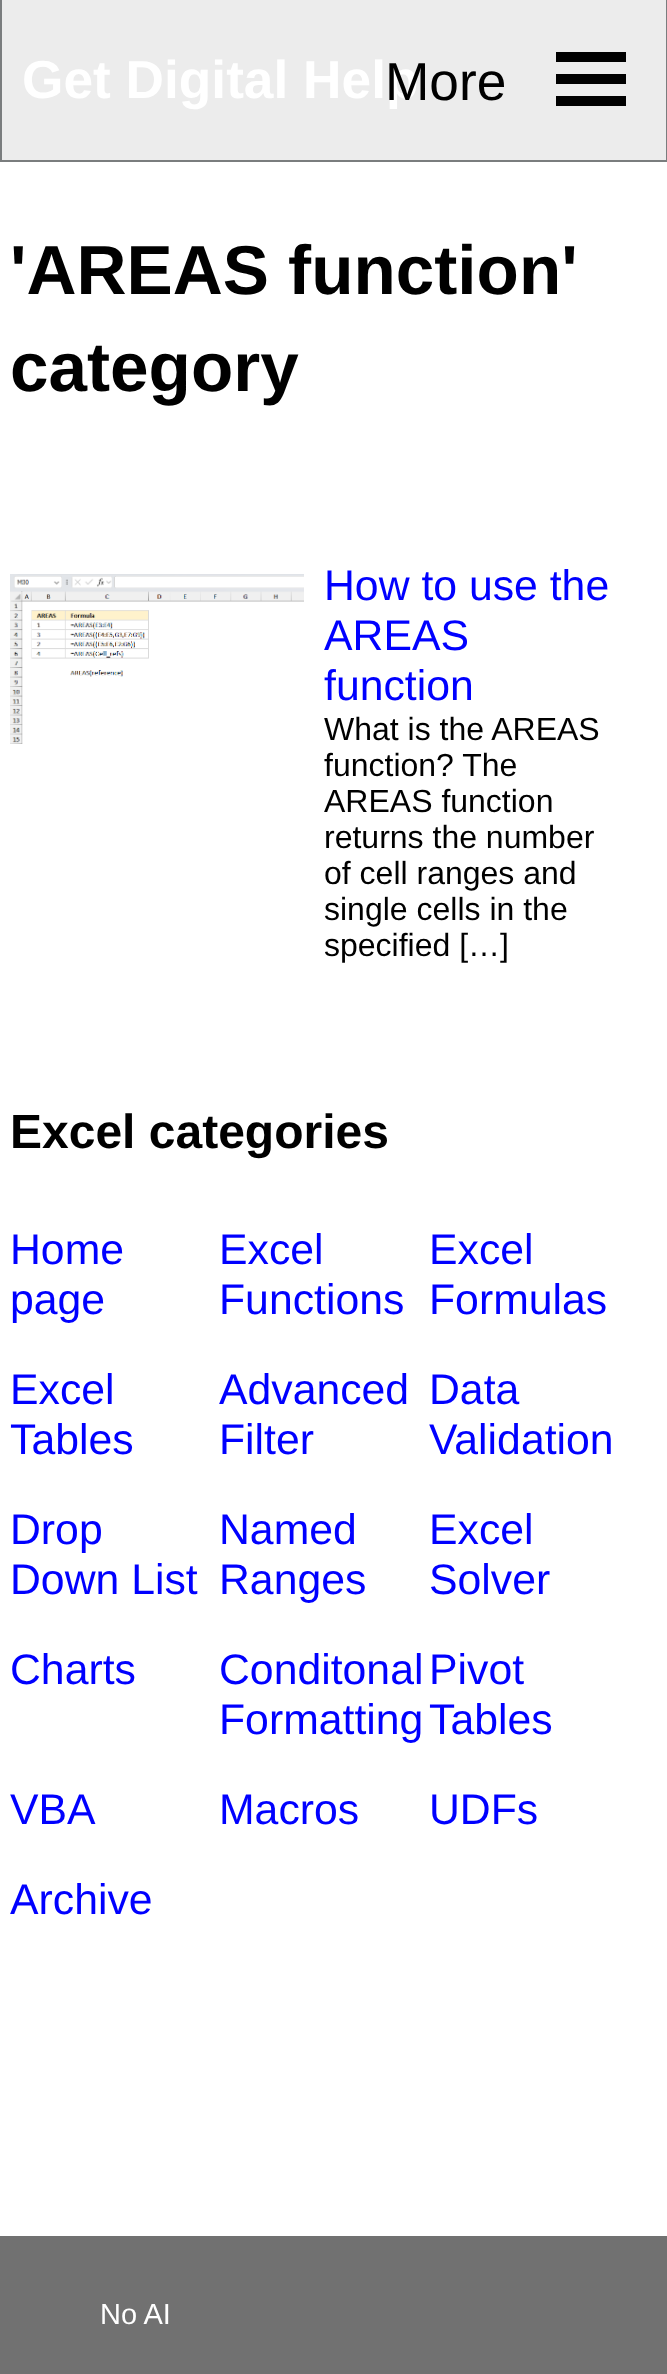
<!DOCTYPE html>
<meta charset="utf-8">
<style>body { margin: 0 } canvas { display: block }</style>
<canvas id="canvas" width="667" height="2374"></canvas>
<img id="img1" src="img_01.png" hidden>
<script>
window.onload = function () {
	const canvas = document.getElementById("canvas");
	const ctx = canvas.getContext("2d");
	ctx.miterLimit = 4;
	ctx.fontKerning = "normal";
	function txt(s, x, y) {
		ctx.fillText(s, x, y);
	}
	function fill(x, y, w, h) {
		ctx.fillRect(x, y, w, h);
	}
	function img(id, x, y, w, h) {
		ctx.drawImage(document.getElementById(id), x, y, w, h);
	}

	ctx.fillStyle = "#FFFFFF";
	fill(0, 0, 667, 2374);
	ctx.fillStyle = "#ECECEC";
	fill(2, 0, 664, 160);
	ctx.fillStyle = "#7A7D7E";
	fill(666, 0, 1, 162);
	fill(0, 160, 667, 2);
	fill(0, 0, 2, 162);
	ctx.fillStyle = "#000000";
	fill(556, 52, 70, 10);
	fill(556, 74, 70, 10);
	fill(556, 96, 70, 10);
	img("img1", 10, 574, 294, 170);
	ctx.fillStyle = "#717171";
	fill(0, 2236, 667, 138);
	ctx.font = "bold 53.25px Liberation Sans";
	ctx.fillStyle = "#FFFFFF";
	txt("Get Digital Help", 22, 98);
	ctx.font = "53.25px Liberation Sans";
	ctx.fillStyle = "#000000";
	txt("More", 385, 100);
	ctx.font = "bold 69.25px Liberation Sans";
	txt("'AREAS function'", 10, 294);
	txt("category", 10, 391);
	ctx.font = "42.75px Liberation Sans";
	ctx.fillStyle = "#0000FF";
	txt("How to use the", 324, 600);
	txt("AREAS", 324, 650);
	txt("function", 324, 700);
	ctx.font = "32px Liberation Sans";
	ctx.fillStyle = "#000000";
	txt("What is the AREAS", 324, 740);
	txt("function? The", 324, 776);
	txt("AREAS function", 324, 812);
	txt("returns the number", 324, 848);
	txt("of cell ranges and", 324, 884);
	txt("single cells in the", 324, 920);
	txt("specified […]", 324, 956);
	ctx.font = "bold 48px Liberation Sans";
	txt("Excel categories", 10, 1148);
	ctx.font = "42.75px Liberation Sans";
	ctx.fillStyle = "#0000FF";
	txt("Home", 10, 1264);
	txt("page", 10, 1314);
	txt("Excel", 219, 1264);
	txt("Functions", 219, 1314);
	txt("Excel", 429, 1264);
	txt("Formulas", 429, 1314);
	txt("Excel", 10, 1404);
	txt("Tables", 10, 1454);
	txt("Advanced", 219, 1404);
	txt("Filter", 219, 1454);
	txt("Data", 429, 1404);
	txt("Validation", 429, 1454);
	txt("Drop", 10, 1544);
	txt("Down List", 10, 1594);
	txt("Named", 219, 1544);
	txt("Ranges", 219, 1594);
	txt("Excel", 429, 1544);
	txt("Solver", 429, 1594);
	txt("Charts", 10, 1684);
	txt("Conditonal", 219, 1684);
	txt("Formatting", 219, 1734);
	txt("Pivot", 429, 1684);
	txt("Tables", 429, 1734);
	txt("VBA", 10, 1824);
	txt("Macros", 219, 1824);
	txt("UDFs", 429, 1824);
	txt("Archive", 10, 1914);
	ctx.font = "29px Liberation Sans";
	ctx.fillStyle = "#FFFFFF";
	txt("No AI", 100, 2324);
};
</script>
